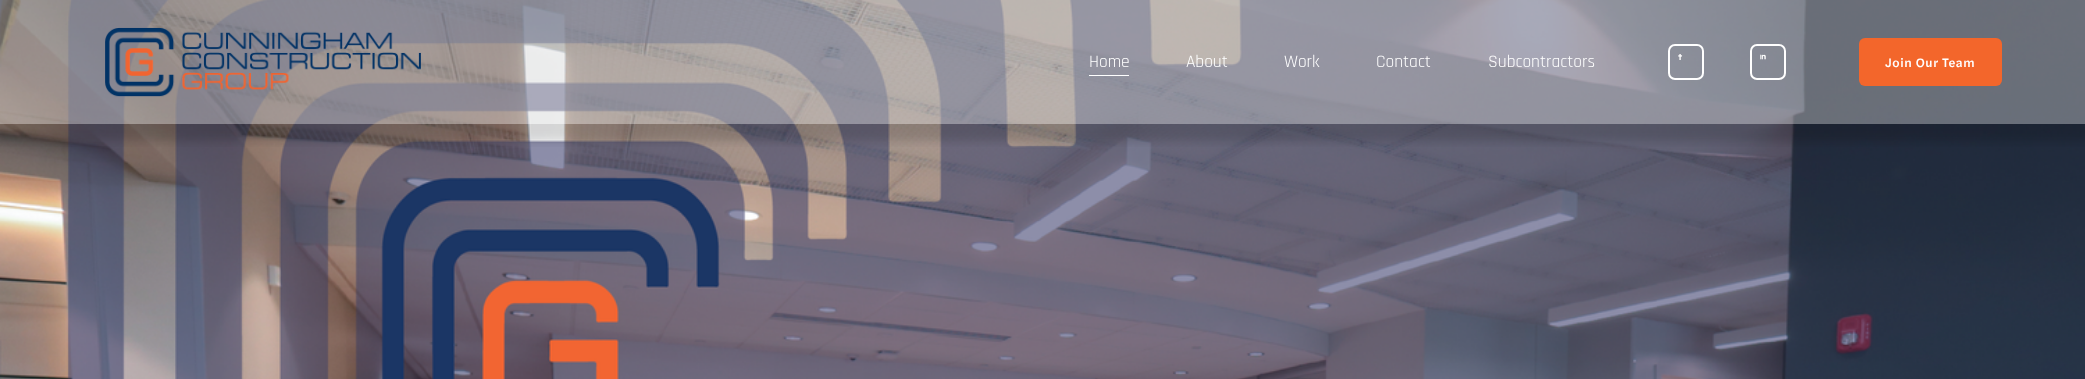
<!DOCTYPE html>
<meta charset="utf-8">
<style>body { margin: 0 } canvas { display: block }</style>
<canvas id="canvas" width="2085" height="379"></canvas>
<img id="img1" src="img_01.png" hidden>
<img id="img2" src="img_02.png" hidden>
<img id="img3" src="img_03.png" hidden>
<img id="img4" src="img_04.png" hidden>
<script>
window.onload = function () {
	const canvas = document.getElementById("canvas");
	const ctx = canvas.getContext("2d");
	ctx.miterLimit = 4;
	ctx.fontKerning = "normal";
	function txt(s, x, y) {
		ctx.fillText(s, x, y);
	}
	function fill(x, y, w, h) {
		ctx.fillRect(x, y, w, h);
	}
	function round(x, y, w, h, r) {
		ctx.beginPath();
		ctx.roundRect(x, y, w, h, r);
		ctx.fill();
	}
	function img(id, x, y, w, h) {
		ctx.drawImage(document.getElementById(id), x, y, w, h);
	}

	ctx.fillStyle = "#FFFFFF";
	fill(0, 0, 2085, 379);
	img("img1", 0, 0, 2085, 379);
	ctx.save();
	ctx.beginPath();
	ctx.rect(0, 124, 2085, 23);
	ctx.clip();
	ctx.fillStyle = "rgba(0, 0, 0, 0.15)";
	ctx.filter = "blur(5px)";
	ctx.beginPath();
	ctx.rect(-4, 9, 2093, 132);
	ctx.fill();
	ctx.filter = "none";
	ctx.restore();
	ctx.fillStyle = "rgba(216, 216, 216, 0.4)";
	fill(0, 0, 2085, 124);
	img("img2", 105, 27, 316, 70);
	ctx.fillStyle = "#FFFFFF";
	fill(1089, 75, 40, 1);
	ctx.beginPath();
	ctx.roundRect(1669, 45, 34, 34, 6);
	ctx.strokeStyle = "#FFFFFF";
	ctx.lineWidth = 2;
	ctx.stroke();
	img("img3", 1678, 54, 5, 6);
	ctx.beginPath();
	ctx.roundRect(1751, 45, 34, 34, 6);
	ctx.stroke();
	img("img4", 1760, 54, 6, 6);
	ctx.fillStyle = "#F3662B";
	round(1859, 38, 143, 48, 6);
	ctx.font = "17.5px Rajdhani";
	ctx.fillStyle = "#FFFFFF";
	txt("Home", 1089, 67);
	txt("About", 1186, 67);
	txt("Work", 1284, 67);
	txt("Contact", 1376, 67);
	txt("Subcontractors", 1488, 67);
	ctx.letterSpacing = "0.6px";
	ctx.font = "500 12.75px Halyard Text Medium";
	txt("Join Our Team", 1885, 67);
};
</script>
